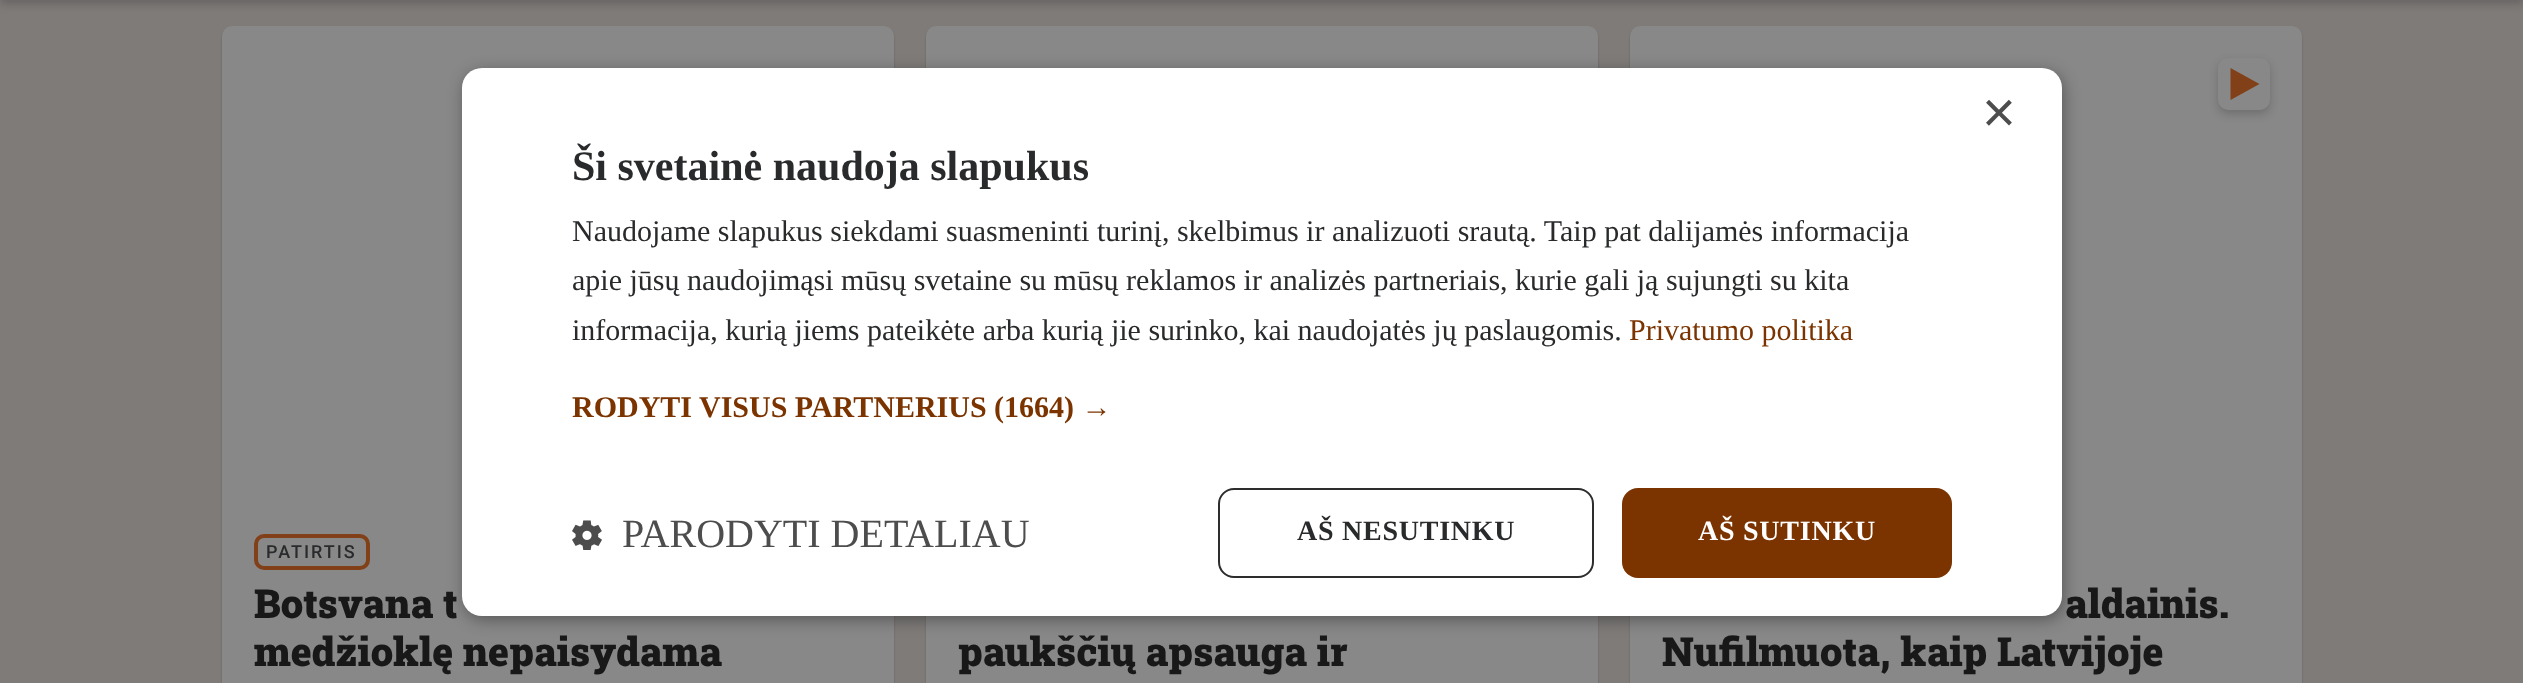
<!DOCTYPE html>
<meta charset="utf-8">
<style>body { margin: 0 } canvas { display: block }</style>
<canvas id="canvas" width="2523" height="683"></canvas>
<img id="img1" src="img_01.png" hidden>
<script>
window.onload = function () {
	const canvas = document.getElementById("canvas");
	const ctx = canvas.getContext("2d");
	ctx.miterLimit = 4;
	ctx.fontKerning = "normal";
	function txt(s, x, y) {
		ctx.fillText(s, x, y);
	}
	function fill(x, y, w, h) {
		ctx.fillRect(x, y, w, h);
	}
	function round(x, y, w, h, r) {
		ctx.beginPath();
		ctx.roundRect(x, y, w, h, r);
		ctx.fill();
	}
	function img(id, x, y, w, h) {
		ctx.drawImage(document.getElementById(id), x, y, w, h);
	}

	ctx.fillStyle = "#7E7B79";
	fill(0, 0, 2523, 683);
	ctx.fillStyle = "rgba(9, 9, 9, 0.2)";
	ctx.filter = "blur(4px)";
	ctx.beginPath();
	ctx.rect(0, -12, 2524, 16);
	ctx.fill();
	ctx.filter = "none";
	ctx.fillStyle = "rgba(45, 36, 33, 0.25)";
	ctx.filter = "blur(1px)";
	ctx.beginPath();
	ctx.roundRect(222, 28, 672, 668, 10);
	ctx.fill();
	ctx.filter = "none";
	ctx.fillStyle = "#888888";
	round(222, 26, 672, 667, 10);
	ctx.fillStyle = "rgba(45, 36, 33, 0.25)";
	ctx.filter = "blur(1px)";
	ctx.beginPath();
	ctx.roundRect(926, 28, 672, 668, 10);
	ctx.fill();
	ctx.filter = "none";
	ctx.fillStyle = "#888888";
	round(926, 26, 672, 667, 10);
	ctx.fillStyle = "rgba(45, 36, 33, 0.25)";
	ctx.filter = "blur(1px)";
	ctx.beginPath();
	ctx.roundRect(1630, 28, 672, 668, 10);
	ctx.fill();
	ctx.filter = "none";
	ctx.fillStyle = "#888888";
	round(1630, 26, 672, 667, 10);
	ctx.fillStyle = "rgba(0, 0, 0, 0.35)";
	ctx.filter = "blur(8px)";
	ctx.beginPath();
	ctx.roundRect(464, 72, 1600, 548, 20);
	ctx.fill();
	ctx.filter = "none";
	ctx.fillStyle = "#FFFFFF";
	round(462, 68, 1600, 548, 20);
	img("img1", 572, 520, 30, 30);
	ctx.beginPath();
	ctx.roundRect(1219, 489, 374, 88, 15);
	ctx.strokeStyle = "#2D2D2D";
	ctx.lineWidth = 2;
	ctx.stroke();
	ctx.fillStyle = "#7B3400";
	round(1622, 488, 330, 90, 16);
	ctx.beginPath();
	ctx.roundRect(256, 536, 112, 32, 8);
	ctx.strokeStyle = "#824019";
	ctx.lineWidth = 4;
	ctx.stroke();
	ctx.fillStyle = "rgba(9, 9, 9, 0.2)";
	ctx.filter = "blur(4px)";
	ctx.beginPath();
	ctx.roundRect(2218, 62, 52, 52, 10);
	ctx.fill();
	ctx.filter = "none";
	ctx.fillStyle = "#888888";
	round(2218, 58, 52, 52, 10);
	ctx.fillStyle = "#824019";
	ctx.beginPath();
	ctx.moveTo(2259.5, 84);
	ctx.lineTo(2230.5, 100);
	ctx.lineTo(2230.5, 68);
	ctx.closePath();
	ctx.fill();
	ctx.font = "58px Liberation Sans";
	ctx.fillStyle = "#4D4D4D";
	txt("×", 1982, 132);
	ctx.font = "bold 42px Liberation Serif";
	ctx.fillStyle = "#282A2C";
	txt("Ši svetainė naudoja slapukus", 572, 180);
	ctx.font = "30px Liberation Serif";
	txt("Naudojame slapukus siekdami suasmeninti turinį, skelbimus ir analizuoti srautą. Taip pat dalijamės informacija", 572, 241);
	txt("apie jūsų naudojimąsi mūsų svetaine su mūsų reklamos ir analizės partneriais, kurie gali ją sujungti su kita", 572, 290);
	txt("informacija, kurią jiems pateikėte arba kurią jie surinko, kai naudojatės jų paslaugomis.", 572, 340);
	ctx.fillStyle = "#7B3400";
	txt("Privatumo politika", 1629, 340);
	ctx.font = "bold 30px Liberation Serif";
	txt("RODYTI VISUS PARTNERIUS (1664) →", 572, 417);
	ctx.font = "40px Liberation Serif";
	ctx.fillStyle = "#4D4D4D";
	txt("PARODYTI DETALIAU", 622, 547);
	ctx.letterSpacing = "0.75px";
	ctx.font = "bold 28px Liberation Serif";
	ctx.fillStyle = "#282A2C";
	txt("AŠ NESUTINKU", 1297, 540);
	ctx.fillStyle = "#FFFFFF";
	txt("AŠ SUTINKU", 1698, 540);
	ctx.letterSpacing = "2px";
	ctx.font = "500 18px Roboto";
	ctx.fillStyle = "#282A2C";
	txt("PATIRTIS", 266, 558);
	ctx.letterSpacing = "0px";
	ctx.font = "900 40px Roboto Slab";
	ctx.fillStyle = "#181819";
	txt("Botsvana t", 254, 618);
	txt("medžioklę nepaisydama", 254, 666);
	txt("paukščių apsauga ir", 958, 666);
	txt("aldainis.", 2065, 618);
	txt("Nufilmuota, kaip Latvijoje", 1662, 666);
};
</script>
